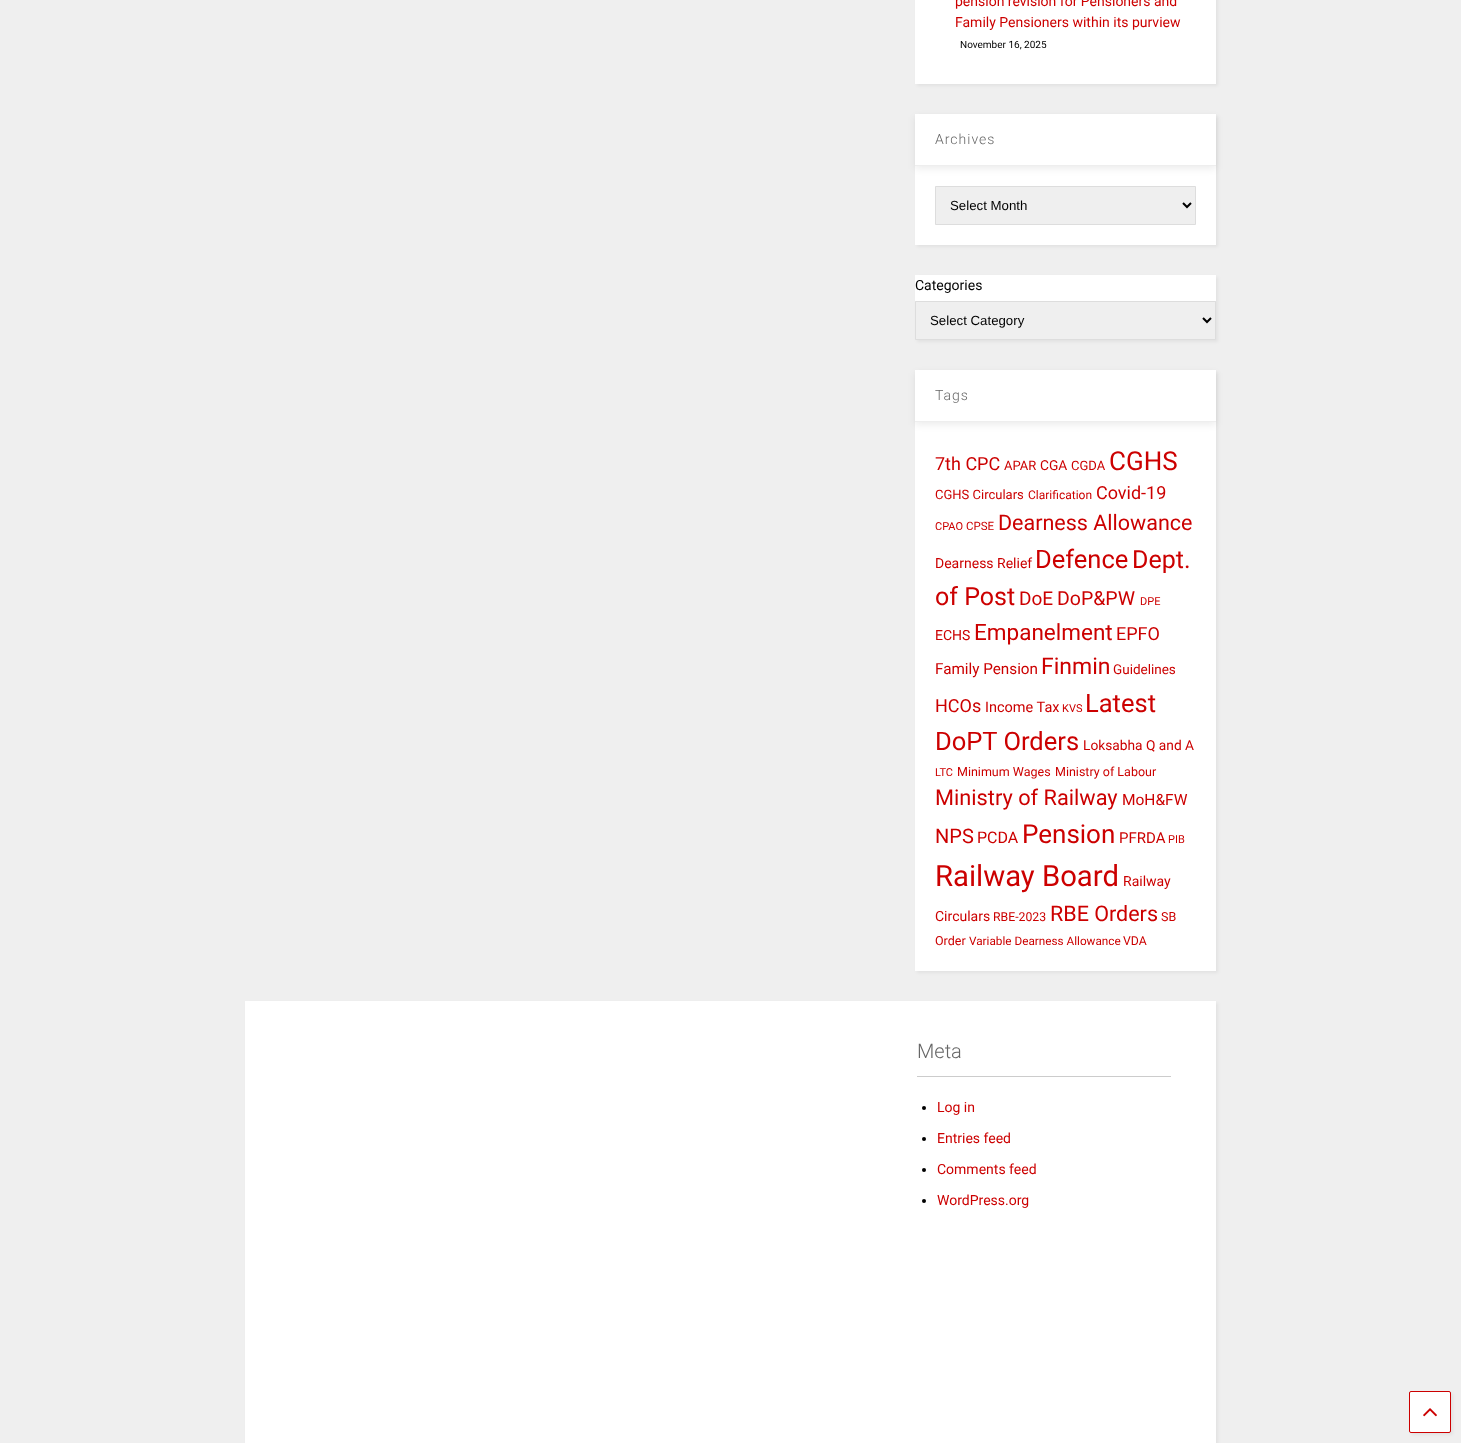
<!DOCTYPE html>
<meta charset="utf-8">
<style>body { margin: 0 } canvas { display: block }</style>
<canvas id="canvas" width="1461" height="1443"></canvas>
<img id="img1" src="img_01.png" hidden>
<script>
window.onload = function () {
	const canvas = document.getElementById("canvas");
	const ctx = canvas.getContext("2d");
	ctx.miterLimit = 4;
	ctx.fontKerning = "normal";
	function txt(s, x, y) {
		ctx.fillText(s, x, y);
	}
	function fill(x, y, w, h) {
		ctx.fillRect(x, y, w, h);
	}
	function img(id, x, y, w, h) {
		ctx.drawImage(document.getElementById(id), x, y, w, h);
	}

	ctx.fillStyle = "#EFEFEF";
	fill(0, 0, 1461, 1443);
	ctx.fillStyle = "rgba(0, 0, 0, 0.05)";
	ctx.filter = "blur(1.5px)";
	ctx.beginPath();
	ctx.rect(917, -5, 301, 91);
	ctx.fill();
	ctx.filter = "none";
	ctx.fillStyle = "#FFFFFF";
	fill(915, 0, 301, 84);
	ctx.fillStyle = "rgba(0, 0, 0, 0.05)";
	ctx.filter = "blur(1.5px)";
	ctx.beginPath();
	ctx.rect(917, 116, 301, 131);
	ctx.fill();
	ctx.filter = "none";
	ctx.fillStyle = "#FFFFFF";
	fill(915, 114, 301, 131);
	ctx.save();
	ctx.beginPath();
	ctx.moveTo(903, 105);
	ctx.lineTo(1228, 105);
	ctx.lineTo(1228, 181);
	ctx.lineTo(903, 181);
	ctx.closePath();
	ctx.moveTo(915, 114);
	ctx.lineTo(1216, 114);
	ctx.lineTo(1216, 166);
	ctx.lineTo(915, 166);
	ctx.closePath();
	ctx.clip("evenodd");
	ctx.fillStyle = "rgba(0, 0, 0, 0.07)";
	ctx.filter = "blur(3.5px)";
	ctx.beginPath();
	ctx.rect(915, 117, 301, 52);
	ctx.fill();
	ctx.filter = "none";
	ctx.restore();
	ctx.fillStyle = "#EEEEEE";
	fill(915, 165, 301, 1);
	ctx.fillStyle = "#EFEFEF";
	ctx.beginPath();
	ctx.rect(935.5, 186.5, 260, 38);
	ctx.fill();
	ctx.strokeStyle = "#DDDDDD";
	ctx.stroke();
	ctx.beginPath();
	ctx.moveTo(1183, 203);
	ctx.lineTo(1187, 207);
	ctx.lineTo(1191, 203);
	ctx.strokeStyle = "#000000";
	ctx.lineWidth = 2;
	ctx.stroke();
	ctx.fillStyle = "rgba(0, 0, 0, 0.05)";
	ctx.filter = "blur(1.5px)";
	ctx.beginPath();
	ctx.rect(917, 277, 301, 65);
	ctx.fill();
	ctx.filter = "none";
	ctx.fillStyle = "#FFFFFF";
	fill(915, 275, 301, 26);
	ctx.fillStyle = "#EFEFEF";
	ctx.beginPath();
	ctx.rect(915.5, 301.5, 300, 38);
	ctx.fill();
	ctx.strokeStyle = "#DDDDDD";
	ctx.lineWidth = 1;
	ctx.stroke();
	ctx.beginPath();
	ctx.moveTo(1203, 318);
	ctx.lineTo(1207, 322);
	ctx.lineTo(1211, 318);
	ctx.strokeStyle = "#000000";
	ctx.lineWidth = 2;
	ctx.stroke();
	ctx.fillStyle = "rgba(0, 0, 0, 0.05)";
	ctx.filter = "blur(1.5px)";
	ctx.beginPath();
	ctx.rect(917, 372, 301, 601);
	ctx.fill();
	ctx.filter = "none";
	ctx.fillStyle = "#FFFFFF";
	fill(915, 370, 301, 601);
	ctx.save();
	ctx.beginPath();
	ctx.moveTo(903, 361);
	ctx.lineTo(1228, 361);
	ctx.lineTo(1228, 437);
	ctx.lineTo(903, 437);
	ctx.closePath();
	ctx.moveTo(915, 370);
	ctx.lineTo(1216, 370);
	ctx.lineTo(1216, 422);
	ctx.lineTo(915, 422);
	ctx.closePath();
	ctx.clip("evenodd");
	ctx.fillStyle = "rgba(0, 0, 0, 0.07)";
	ctx.filter = "blur(3.5px)";
	ctx.beginPath();
	ctx.rect(915, 373, 301, 52);
	ctx.fill();
	ctx.filter = "none";
	ctx.restore();
	ctx.fillStyle = "#EEEEEE";
	fill(915, 421, 301, 1);
	ctx.fillStyle = "rgba(0, 0, 0, 0.05)";
	ctx.filter = "blur(1.5px)";
	ctx.beginPath();
	ctx.rect(247, 1003, 971, 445);
	ctx.fill();
	ctx.filter = "none";
	ctx.fillStyle = "#FFFFFF";
	fill(245, 1001, 971, 442);
	ctx.fillStyle = "#CCCCCC";
	fill(917, 1076, 254, 1);
	ctx.fillStyle = "#000000";
	ctx.beginPath();
	ctx.arc(924, 1108, 2, 0, Math.PI * 2);
	ctx.fill();
	ctx.beginPath();
	ctx.arc(924, 1139, 2, 0, Math.PI * 2);
	ctx.fill();
	ctx.beginPath();
	ctx.arc(924, 1170, 2, 0, Math.PI * 2);
	ctx.fill();
	ctx.beginPath();
	ctx.arc(924, 1201, 2, 0, Math.PI * 2);
	ctx.fill();
	ctx.fillStyle = "rgba(0, 0, 0, 0.05)";
	ctx.filter = "blur(1.5px)";
	ctx.beginPath();
	ctx.roundRect(1411, 1393, 42, 42, 2);
	ctx.fill();
	ctx.filter = "none";
	ctx.fillStyle = "#FFFFFF";
	ctx.beginPath();
	ctx.roundRect(1409.5, 1391.5, 41, 41, 1.5);
	ctx.fill();
	ctx.strokeStyle = "#CC0000";
	ctx.lineWidth = 1;
	ctx.stroke();
	img("img1", 1423, 1408, 14, 9);
	ctx.font = "14px Roboto";
	ctx.fillStyle = "#CC0000";
	txt("pension revision for Pensioners and", 955, 6);
	txt("Family Pensioners within its purview", 955, 27);
	ctx.font = "10px Roboto";
	ctx.fillStyle = "#000000";
	txt("November 16, 2025", 960, 48);
	ctx.letterSpacing = "1px";
	ctx.font = "300 14px Roboto";
	ctx.fillStyle = "#666666";
	txt("Archives", 935, 144);
	ctx.letterSpacing = "0px";
	ctx.font = "13.25px Liberation Sans";
	ctx.fillStyle = "#000000";
	txt("Select Month", 950, 210);
	ctx.font = "14px Roboto";
	txt("Categories", 915, 290);
	ctx.font = "13.25px Liberation Sans";
	txt("Select Category", 930, 325);
	ctx.letterSpacing = "1px";
	ctx.font = "300 14px Roboto";
	ctx.fillStyle = "#666666";
	txt("Tags", 935, 400);
	ctx.letterSpacing = "0px";
	ctx.font = "18px Roboto";
	ctx.fillStyle = "#CC0000";
	txt("7th CPC", 935, 470);
	ctx.font = "13px Roboto";
	txt("APAR", 1004, 470);
	ctx.font = "13.75px Roboto";
	txt("CGA", 1040, 470);
	ctx.font = "13px Roboto";
	txt("CGDA", 1071, 470);
	ctx.font = "26px Roboto";
	txt("CGHS", 1109, 470);
	ctx.font = "13px Roboto";
	txt("CGHS Circulars", 935, 499);
	ctx.font = "12px Roboto";
	txt("Clarification", 1028, 499);
	ctx.font = "18px Roboto";
	txt("Covid-19", 1096, 499);
	ctx.font = "11px Roboto";
	txt("CPAO", 935, 530);
	ctx.font = "11.5px Roboto";
	txt("CPSE", 966, 530);
	ctx.font = "21.5px Roboto";
	txt("Dearness Allowance", 998, 530);
	ctx.font = "14px Roboto";
	txt("Dearness Relief", 935, 568);
	ctx.font = "25.5px Roboto";
	txt("Defence", 1035, 568);
	ctx.font = "25px Roboto";
	txt("Dept.", 1132, 568);
	txt("of Post", 935, 605);
	ctx.font = "19px Roboto";
	txt("DoE", 1019, 605);
	ctx.font = "19.5px Roboto";
	txt("DoP&PW", 1057, 605);
	ctx.font = "11px Roboto";
	txt("DPE", 1140, 605);
	ctx.font = "14px Roboto";
	txt("ECHS", 935, 640);
	ctx.font = "22.5px Roboto";
	txt("Empanelment", 974, 640);
	ctx.font = "18px Roboto";
	txt("EPFO", 1116, 640);
	ctx.font = "15.25px Roboto";
	txt("Family Pension", 935, 674);
	ctx.font = "23px Roboto";
	txt("Finmin", 1041, 674);
	ctx.font = "13.5px Roboto";
	txt("Guidelines", 1113, 674);
	ctx.font = "18px Roboto";
	txt("HCOs", 935, 712);
	ctx.font = "14.5px Roboto";
	txt("Income Tax", 985, 712);
	ctx.font = "11px Roboto";
	txt("KVS", 1062, 712);
	ctx.font = "25.5px Roboto";
	txt("Latest", 1085, 712);
	txt("DoPT Orders", 935, 750);
	ctx.font = "13.75px Roboto";
	txt("Loksabha Q and A", 1083, 750);
	ctx.font = "11px Roboto";
	txt("LTC", 935, 776);
	ctx.font = "12.5px Roboto";
	txt("Minimum Wages", 957, 776);
	txt("Ministry of Labour", 1055, 776);
	ctx.font = "21.75px Roboto";
	txt("Ministry of Railway", 935, 805);
	ctx.font = "15.5px Roboto";
	txt("MoH&FW", 1122, 805);
	ctx.font = "20px Roboto";
	txt("NPS", 935, 843);
	ctx.font = "16px Roboto";
	txt("PCDA", 977, 843);
	ctx.font = "26px Roboto";
	txt("Pension", 1022, 843);
	ctx.font = "15px Roboto";
	txt("PFRDA", 1119, 843);
	ctx.font = "11px Roboto";
	txt("PIB", 1168, 843);
	ctx.font = "29.25px Roboto";
	txt("Railway Board", 935, 886);
	ctx.font = "14px Roboto";
	txt("Railway", 1123, 886);
	txt("Circulars", 935, 921);
	ctx.font = "12.25px Roboto";
	txt("RBE-2023", 993, 921);
	ctx.font = "21.5px Roboto";
	txt("RBE Orders", 1050, 921);
	ctx.font = "12.5px Roboto";
	txt("SB", 1161, 921);
	txt("Order", 935, 945);
	ctx.font = "11.75px Roboto";
	txt("Variable Dearness Allowance", 969, 945);
	ctx.font = "12.25px Roboto";
	txt("VDA", 1123, 945);
	ctx.font = "300 20px Roboto";
	ctx.fillStyle = "#666666";
	txt("Meta", 917, 1058);
	ctx.font = "14px Roboto";
	ctx.fillStyle = "#CC0000";
	txt("Log in", 937, 1112);
	txt("Entries feed", 937, 1143);
	txt("Comments feed", 937, 1174);
	txt("WordPress.org", 937, 1205);
};
</script>
